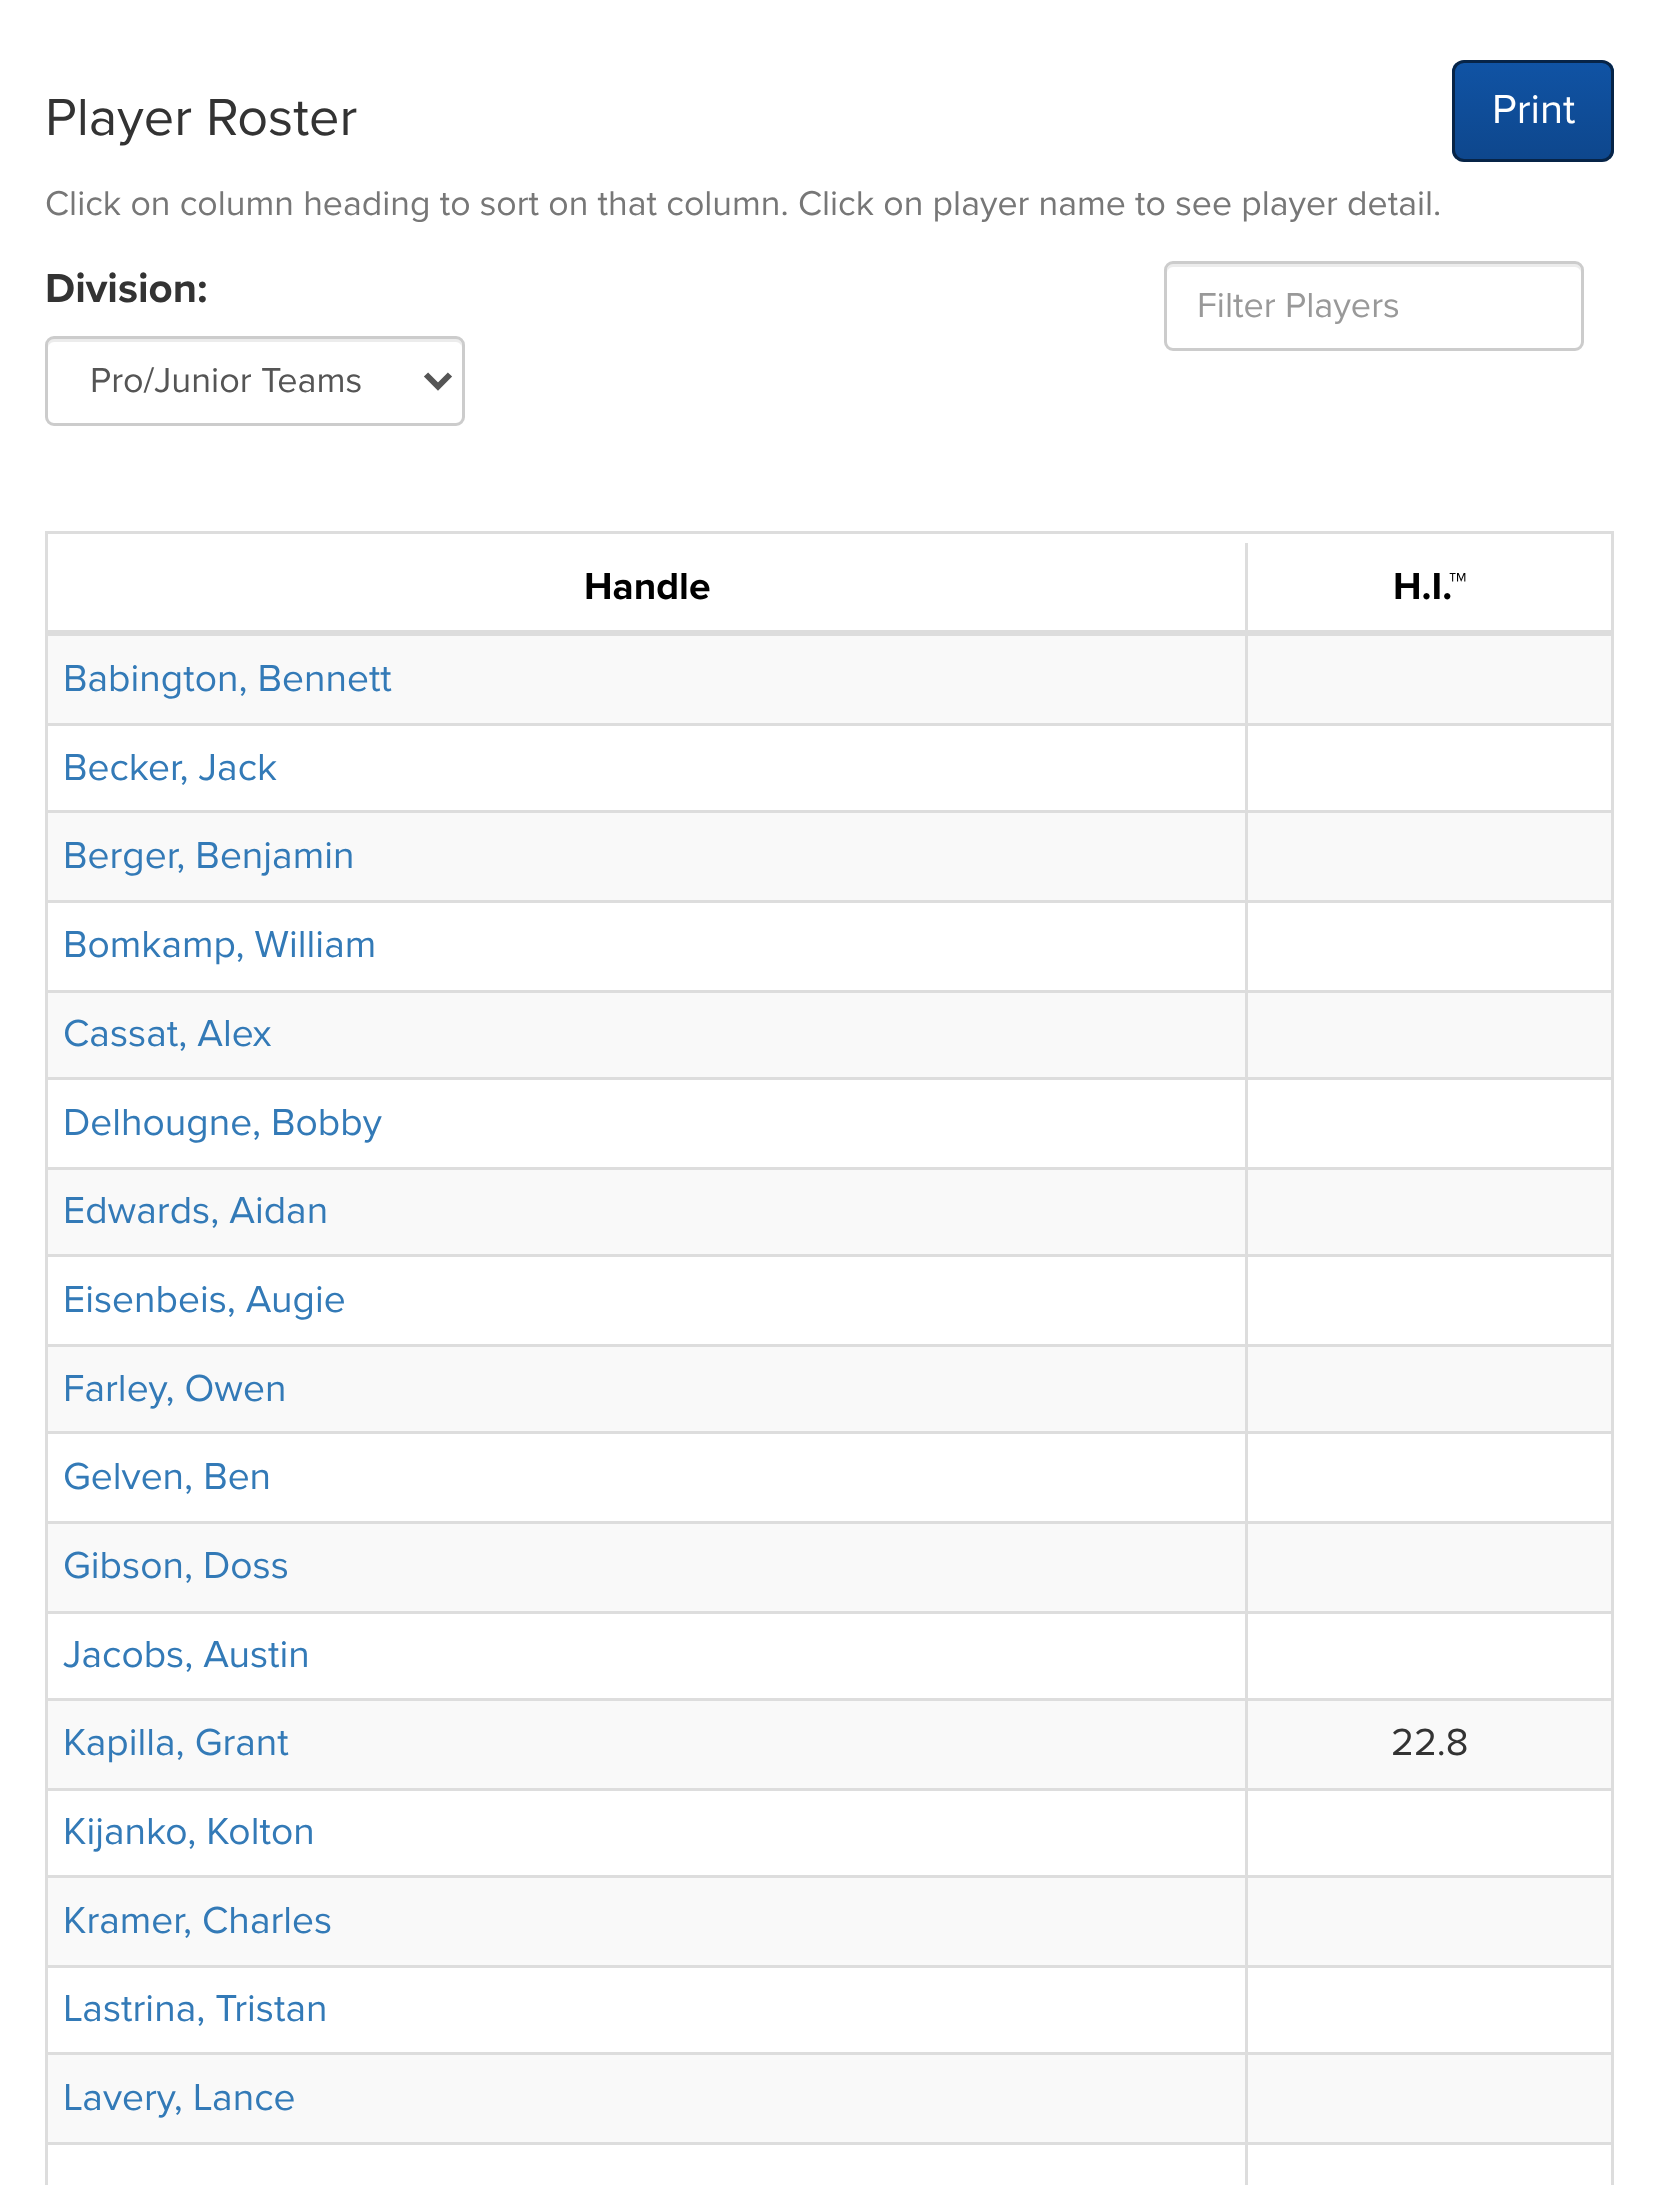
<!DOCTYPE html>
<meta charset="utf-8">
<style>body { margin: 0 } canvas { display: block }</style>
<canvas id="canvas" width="1658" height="2185"></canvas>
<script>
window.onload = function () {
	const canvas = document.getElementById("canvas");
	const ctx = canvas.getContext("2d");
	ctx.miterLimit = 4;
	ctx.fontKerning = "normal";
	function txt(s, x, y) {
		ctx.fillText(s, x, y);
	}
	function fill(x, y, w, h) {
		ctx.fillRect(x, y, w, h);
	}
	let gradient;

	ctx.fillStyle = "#FFFFFF";
	fill(0, 0, 1658, 2185);
	ctx.save();
	ctx.beginPath();
	ctx.roundRect(1452, 60, 162, 102, 12);
	ctx.clip();
	gradient = ctx.createLinearGradient(1533, 63, 1533, 159);
	gradient.addColorStop(0, "#1053A4");
	gradient.addColorStop(1, "#0E478D");
	ctx.fillStyle = gradient;
	fill(1452, 63, 162, 96);
	ctx.restore();
	ctx.beginPath();
	ctx.roundRect(1453.5, 61.5, 159, 99, 10.5);
	ctx.strokeStyle = "#072447";
	ctx.lineWidth = 3;
	ctx.stroke();
	ctx.fillStyle = "#ECECEC";
	ctx.beginPath();
	ctx.moveTo(54, 342);
	ctx.lineTo(456, 342);
	ctx.bezierCurveTo(459, 342, 462, 345, 462, 348);
	ctx.bezierCurveTo(462, 344, 461, 339, 456, 339);
	ctx.lineTo(54, 339);
	ctx.bezierCurveTo(49, 339, 48, 344, 48, 348);
	ctx.bezierCurveTo(48, 345, 51, 342, 54, 342);
	ctx.closePath();
	ctx.fill();
	ctx.beginPath();
	ctx.roundRect(46.5, 337.5, 417, 87, 7.5);
	ctx.strokeStyle = "#CCCCCC";
	ctx.stroke();
	ctx.beginPath();
	ctx.moveTo(426, 374.5);
	ctx.lineTo(438, 386.5);
	ctx.lineTo(450, 374.5);
	ctx.strokeStyle = "#555555";
	ctx.lineWidth = 6;
	ctx.stroke();
	ctx.beginPath();
	ctx.moveTo(1173, 267);
	ctx.lineTo(1575, 267);
	ctx.bezierCurveTo(1578, 267, 1581, 270, 1581, 273);
	ctx.bezierCurveTo(1581, 269, 1580, 264, 1575, 264);
	ctx.lineTo(1173, 264);
	ctx.bezierCurveTo(1168, 264, 1167, 269, 1167, 273);
	ctx.bezierCurveTo(1167, 270, 1170, 267, 1173, 267);
	ctx.closePath();
	ctx.fill();
	ctx.beginPath();
	ctx.roundRect(1165.5, 262.5, 417, 87, 7.5);
	ctx.strokeStyle = "#CCCCCC";
	ctx.lineWidth = 3;
	ctx.stroke();
	ctx.strokeStyle = "#DDDDDD";
	ctx.strokeRect(46.5, 532.5, 1566, 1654);
	ctx.fillStyle = "#F9F9F9";
	fill(48, 636, 1563, 87);
	ctx.fillStyle = "#DDDDDD";
	fill(1245, 723, 366, 3);
	fill(1245, 810, 366, 3);
	ctx.fillStyle = "#F9F9F9";
	fill(48, 813, 1563, 87);
	ctx.fillStyle = "#DDDDDD";
	fill(1245, 900, 366, 3);
	fill(1245, 990, 366, 3);
	ctx.fillStyle = "#F9F9F9";
	fill(48, 993, 1563, 84);
	ctx.fillStyle = "#DDDDDD";
	fill(1245, 1077, 366, 3);
	fill(1245, 1167, 366, 3);
	ctx.fillStyle = "#F9F9F9";
	fill(48, 1170, 1563, 84);
	ctx.fillStyle = "#DDDDDD";
	fill(1245, 1254, 366, 3);
	fill(1245, 1344, 366, 3);
	ctx.fillStyle = "#F9F9F9";
	fill(48, 1347, 1563, 84);
	ctx.fillStyle = "#DDDDDD";
	fill(1245, 1431, 366, 3);
	fill(1245, 1521, 366, 3);
	ctx.fillStyle = "#F9F9F9";
	fill(48, 1524, 1563, 87);
	ctx.fillStyle = "#DDDDDD";
	fill(1245, 1611, 366, 3);
	fill(1245, 1698, 366, 3);
	ctx.fillStyle = "#F9F9F9";
	fill(48, 1701, 1563, 87);
	ctx.fillStyle = "#DDDDDD";
	fill(1245, 1788, 366, 3);
	fill(1245, 1875, 366, 3);
	ctx.fillStyle = "#F9F9F9";
	fill(48, 1878, 1563, 87);
	ctx.fillStyle = "#DDDDDD";
	fill(1245, 1965, 366, 3);
	fill(1245, 2052, 366, 3);
	ctx.fillStyle = "#F9F9F9";
	fill(48, 2055, 1563, 87);
	ctx.fillStyle = "#DDDDDD";
	fill(1245, 2142, 366, 3);
	fill(1245, 2142, 3, 43);
	fill(48, 2142, 1200, 3);
	fill(1245, 2052, 3, 93);
	fill(48, 2052, 1200, 3);
	fill(1245, 1965, 3, 90);
	fill(48, 1965, 1200, 3);
	fill(1245, 1875, 3, 93);
	fill(48, 1875, 1200, 3);
	fill(1245, 1788, 3, 90);
	fill(48, 1788, 1200, 3);
	fill(1245, 1698, 3, 93);
	fill(48, 1698, 1200, 3);
	fill(1245, 1611, 3, 90);
	fill(48, 1611, 1200, 3);
	fill(1245, 1521, 3, 93);
	fill(48, 1521, 1200, 3);
	fill(1245, 1431, 3, 93);
	fill(48, 1431, 1200, 3);
	fill(1245, 1344, 3, 90);
	fill(48, 1344, 1200, 3);
	fill(1245, 1254, 3, 93);
	fill(48, 1254, 1200, 3);
	fill(1245, 1167, 3, 90);
	fill(48, 1167, 1200, 3);
	fill(1245, 1077, 3, 93);
	fill(48, 1077, 1200, 3);
	fill(1245, 990, 3, 90);
	fill(48, 990, 1200, 3);
	fill(1245, 900, 3, 93);
	fill(48, 900, 1200, 3);
	fill(1245, 810, 3, 93);
	fill(48, 810, 1200, 3);
	fill(1245, 723, 3, 90);
	fill(48, 723, 1200, 3);
	fill(1245, 543, 3, 183);
	fill(48, 630, 1563, 6);
	ctx.font = "54px Proxima Nova";
	ctx.fillStyle = "#333333";
	txt("Player Roster", 45, 135);
	ctx.font = "42px Proxima Nova";
	ctx.fillStyle = "#FFFFFF";
	txt("Print", 1492, 123);
	ctx.font = "35.7px Proxima Nova";
	ctx.fillStyle = "#777777";
	txt("Click on column heading to sort on that column. Click on player name to see player detail.", 45, 215);
	ctx.font = "bold 42px Proxima Nova";
	ctx.fillStyle = "#333333";
	txt("Division:", 45, 302);
	ctx.font = "36px Proxima Nova";
	ctx.fillStyle = "#555555";
	txt("Pro/Junior Teams", 90, 392);
	ctx.fillStyle = "#999999";
	txt("Filter Players", 1197, 317);
	ctx.font = "bold 39px Proxima Nova";
	ctx.fillStyle = "#000000";
	txt("Handle", 584, 599);
	txt("H.I.™", 1393, 599);
	ctx.font = "39px Proxima Nova";
	ctx.fillStyle = "#337AB7";
	txt("Babington, Bennett", 63, 691);
	txt("Becker, Jack", 63, 780);
	txt("Berger, Benjamin", 63, 868);
	txt("Bomkamp, William", 63, 957);
	txt("Cassat, Alex", 63, 1046);
	txt("Delhougne, Bobby", 63, 1135);
	txt("Edwards, Aidan", 63, 1223);
	txt("Eisenbeis, Augie", 63, 1312);
	txt("Farley, Owen", 63, 1401);
	txt("Gelven, Ben", 63, 1489);
	txt("Gibson, Doss", 63, 1578);
	txt("Jacobs, Austin", 63, 1667);
	txt("Kapilla, Grant", 63, 1755);
	ctx.fillStyle = "#333333";
	txt("22.8", 1391, 1755);
	ctx.fillStyle = "#337AB7";
	txt("Kijanko, Kolton", 63, 1844);
	txt("Kramer, Charles", 63, 1933);
	txt("Lastrina, Tristan", 63, 2021);
	txt("Lavery, Lance", 63, 2110);
};
</script>
